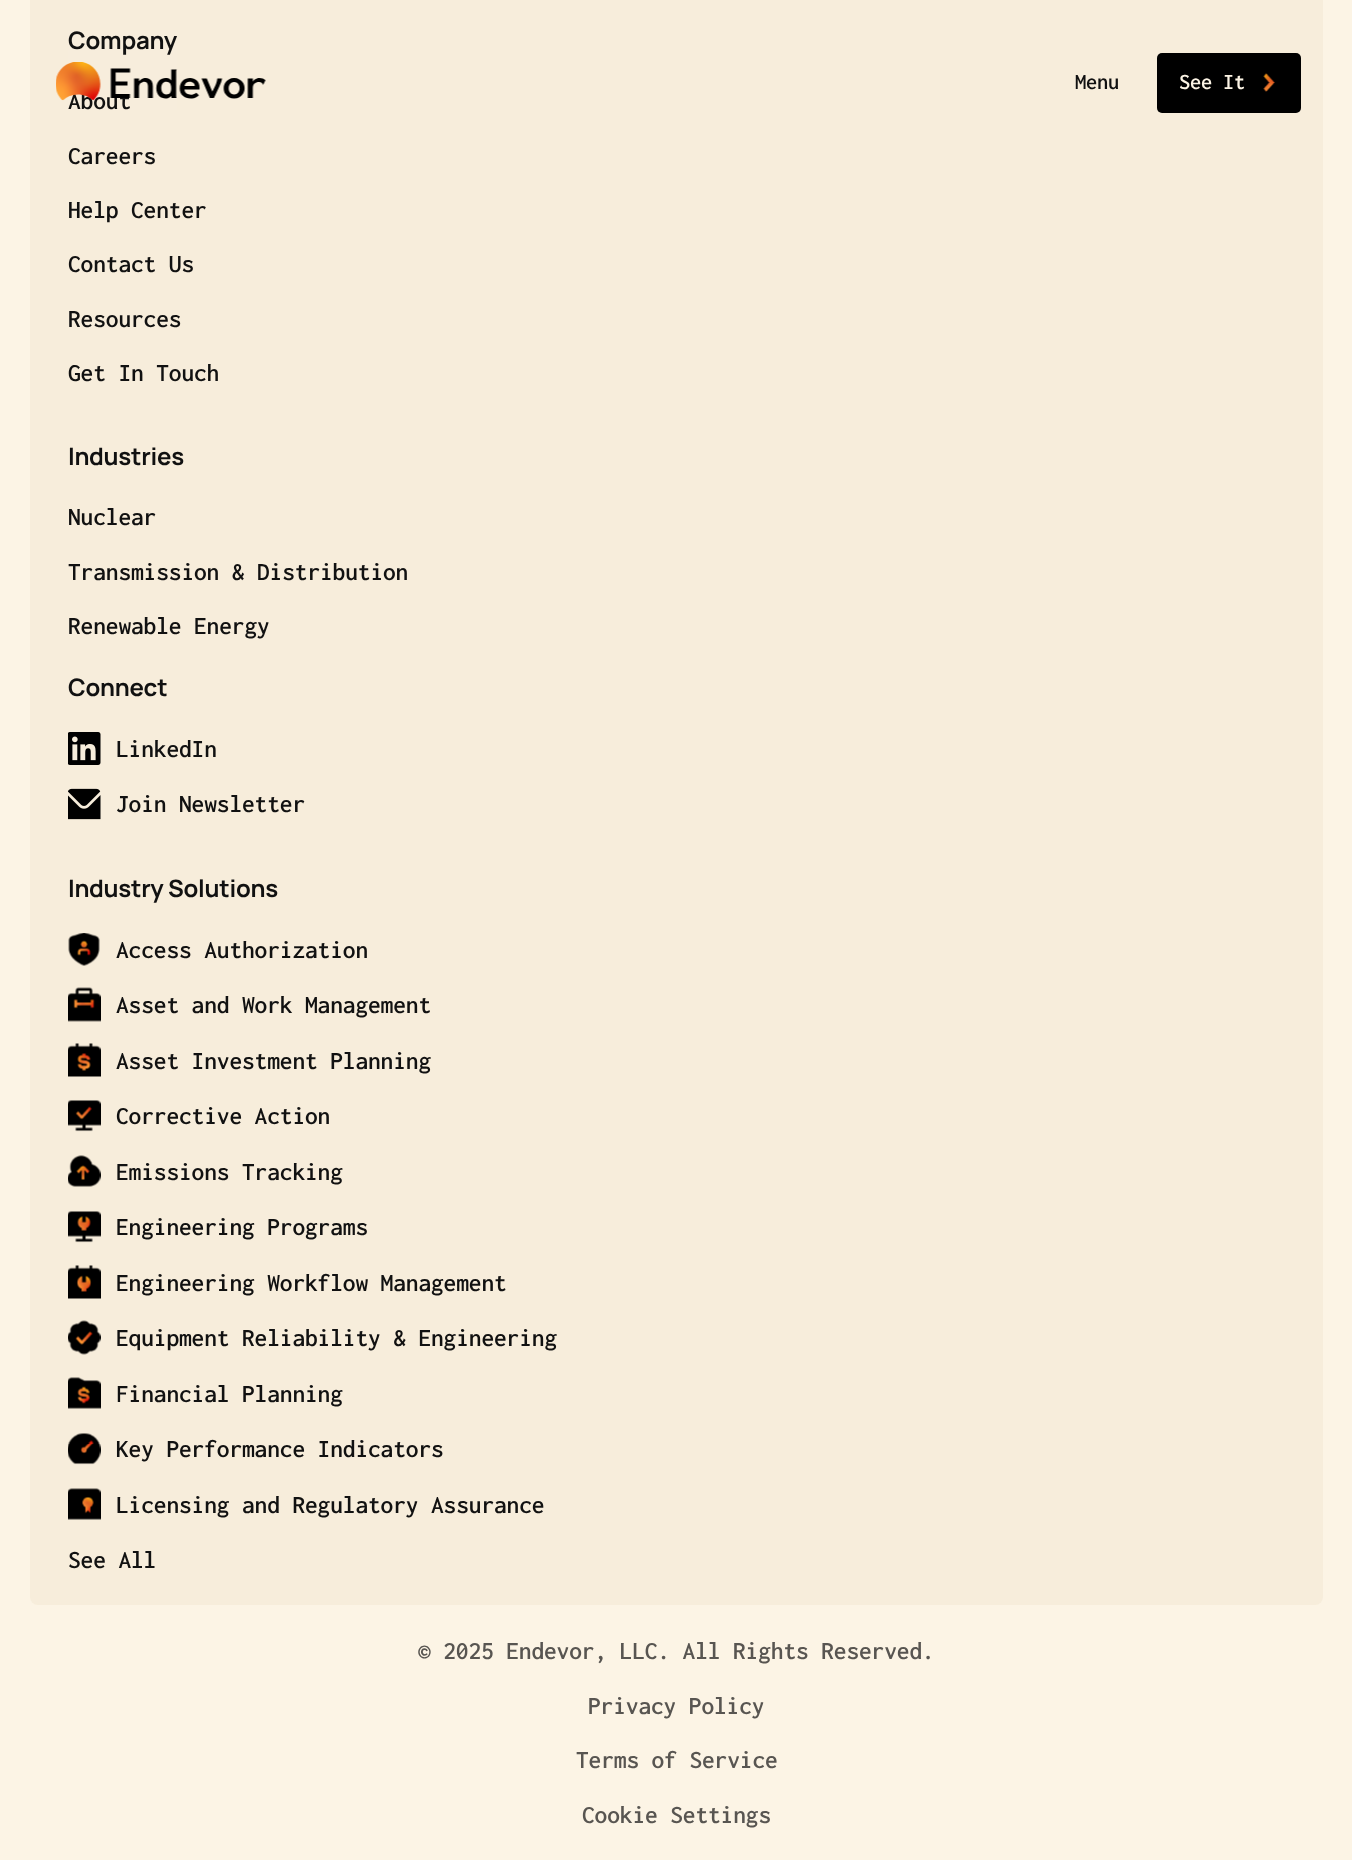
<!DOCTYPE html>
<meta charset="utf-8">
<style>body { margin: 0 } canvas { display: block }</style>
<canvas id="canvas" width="1352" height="1860"></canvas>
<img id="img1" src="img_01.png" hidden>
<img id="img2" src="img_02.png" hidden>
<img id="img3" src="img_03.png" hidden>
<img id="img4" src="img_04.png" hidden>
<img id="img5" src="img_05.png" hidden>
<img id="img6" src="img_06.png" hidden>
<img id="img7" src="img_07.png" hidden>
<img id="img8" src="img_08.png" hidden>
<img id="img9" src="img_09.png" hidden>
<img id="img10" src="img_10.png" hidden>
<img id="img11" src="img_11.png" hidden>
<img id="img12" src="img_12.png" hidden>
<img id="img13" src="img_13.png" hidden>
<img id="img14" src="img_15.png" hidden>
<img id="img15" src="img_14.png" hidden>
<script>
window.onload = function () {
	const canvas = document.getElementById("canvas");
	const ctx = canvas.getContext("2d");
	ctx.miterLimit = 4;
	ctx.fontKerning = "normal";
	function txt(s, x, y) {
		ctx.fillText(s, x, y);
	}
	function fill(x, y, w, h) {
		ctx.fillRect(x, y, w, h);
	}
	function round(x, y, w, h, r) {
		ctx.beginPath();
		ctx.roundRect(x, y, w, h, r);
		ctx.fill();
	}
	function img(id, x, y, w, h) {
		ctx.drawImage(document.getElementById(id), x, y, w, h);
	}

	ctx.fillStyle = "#FCF4E5";
	fill(0, 0, 1352, 1860);
	ctx.fillStyle = "#F7EDDB";
	round(30, -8, 1293, 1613, 8);
	img("img1", 68, 732, 33, 33);
	img("img2", 68, 788, 33, 32);
	img("img3", 68, 933, 32, 33);
	img("img4", 68, 987, 33, 35);
	img("img5", 68, 1043, 33, 34);
	img("img6", 68, 1100, 33, 32);
	img("img7", 68, 1155, 33, 32);
	img("img8", 68, 1211, 33, 32);
	img("img9", 68, 1265, 33, 34);
	img("img10", 68, 1320, 33, 35);
	img("img11", 68, 1377, 33, 32);
	img("img12", 68, 1433, 33, 32);
	img("img13", 68, 1488, 33, 32);
	ctx.fillStyle = "rgba(255, 255, 255, 0.05)";
	fill(68, 31, 109, 79);
	ctx.fillStyle = "#000000";
	round(1157, 53, 144, 60, 5);
	img("img14", 1263, 73, 12, 19);
	ctx.letterSpacing = "-0.25px";
	ctx.font = "bold 24px Manrope";
	ctx.fillStyle = "#111111";
	txt("Company", 68, 49);
	ctx.letterSpacing = "-0.15px";
	ctx.font = "600 25.5px Inconsolata";
	txt("About", 68, 109);
	txt("Careers", 68, 164);
	txt("Help Center", 68, 218);
	txt("Contact Us", 68, 272);
	txt("Resources", 68, 327);
	txt("Get In Touch", 68, 381);
	ctx.letterSpacing = "-0.25px";
	ctx.font = "bold 24px Manrope";
	txt("Industries", 68, 465);
	ctx.letterSpacing = "-0.15px";
	ctx.font = "600 25.5px Inconsolata";
	txt("Nuclear", 68, 525);
	txt("Transmission & Distribution", 68, 580);
	txt("Renewable Energy", 68, 634);
	ctx.letterSpacing = "-0.25px";
	ctx.font = "bold 24px Manrope";
	txt("Connect", 68, 696);
	ctx.letterSpacing = "-0.15px";
	ctx.font = "600 25.5px Inconsolata";
	txt("LinkedIn", 116, 757);
	txt("Join Newsletter", 116, 812);
	ctx.letterSpacing = "-0.25px";
	ctx.font = "bold 24px Manrope";
	txt("Industry Solutions", 68, 897);
	ctx.letterSpacing = "-0.15px";
	ctx.font = "600 25.5px Inconsolata";
	txt("Access Authorization", 116, 958);
	txt("Asset and Work Management", 116, 1013);
	txt("Asset Investment Planning", 116, 1069);
	txt("Corrective Action", 116, 1124);
	txt("Emissions Tracking", 116, 1180);
	txt("Engineering Programs", 116, 1235);
	txt("Engineering Workflow Management", 116, 1291);
	txt("Equipment Reliability & Engineering", 116, 1346);
	txt("Financial Planning", 116, 1402);
	txt("Key Performance Indicators", 116, 1457);
	txt("Licensing and Regulatory Assurance", 116, 1513);
	txt("See All", 68, 1568);
	ctx.fillStyle = "#585551";
	txt("© 2025 Endevor, LLC. All Rights Reserved.", 418, 1659);
	txt("Privacy Policy", 588, 1714);
	txt("Terms of Service", 576, 1768);
	txt("Cookie Settings", 582, 1823);
	img("img15", 56, 62, 210, 39);
	ctx.letterSpacing = "-0.25px";
	ctx.font = "600 22.5px Inconsolata";
	ctx.fillStyle = "#111111";
	txt("Menu", 1075, 89);
	ctx.fillStyle = "#FCF4E5";
	txt("See It", 1179, 89);
};
</script>
